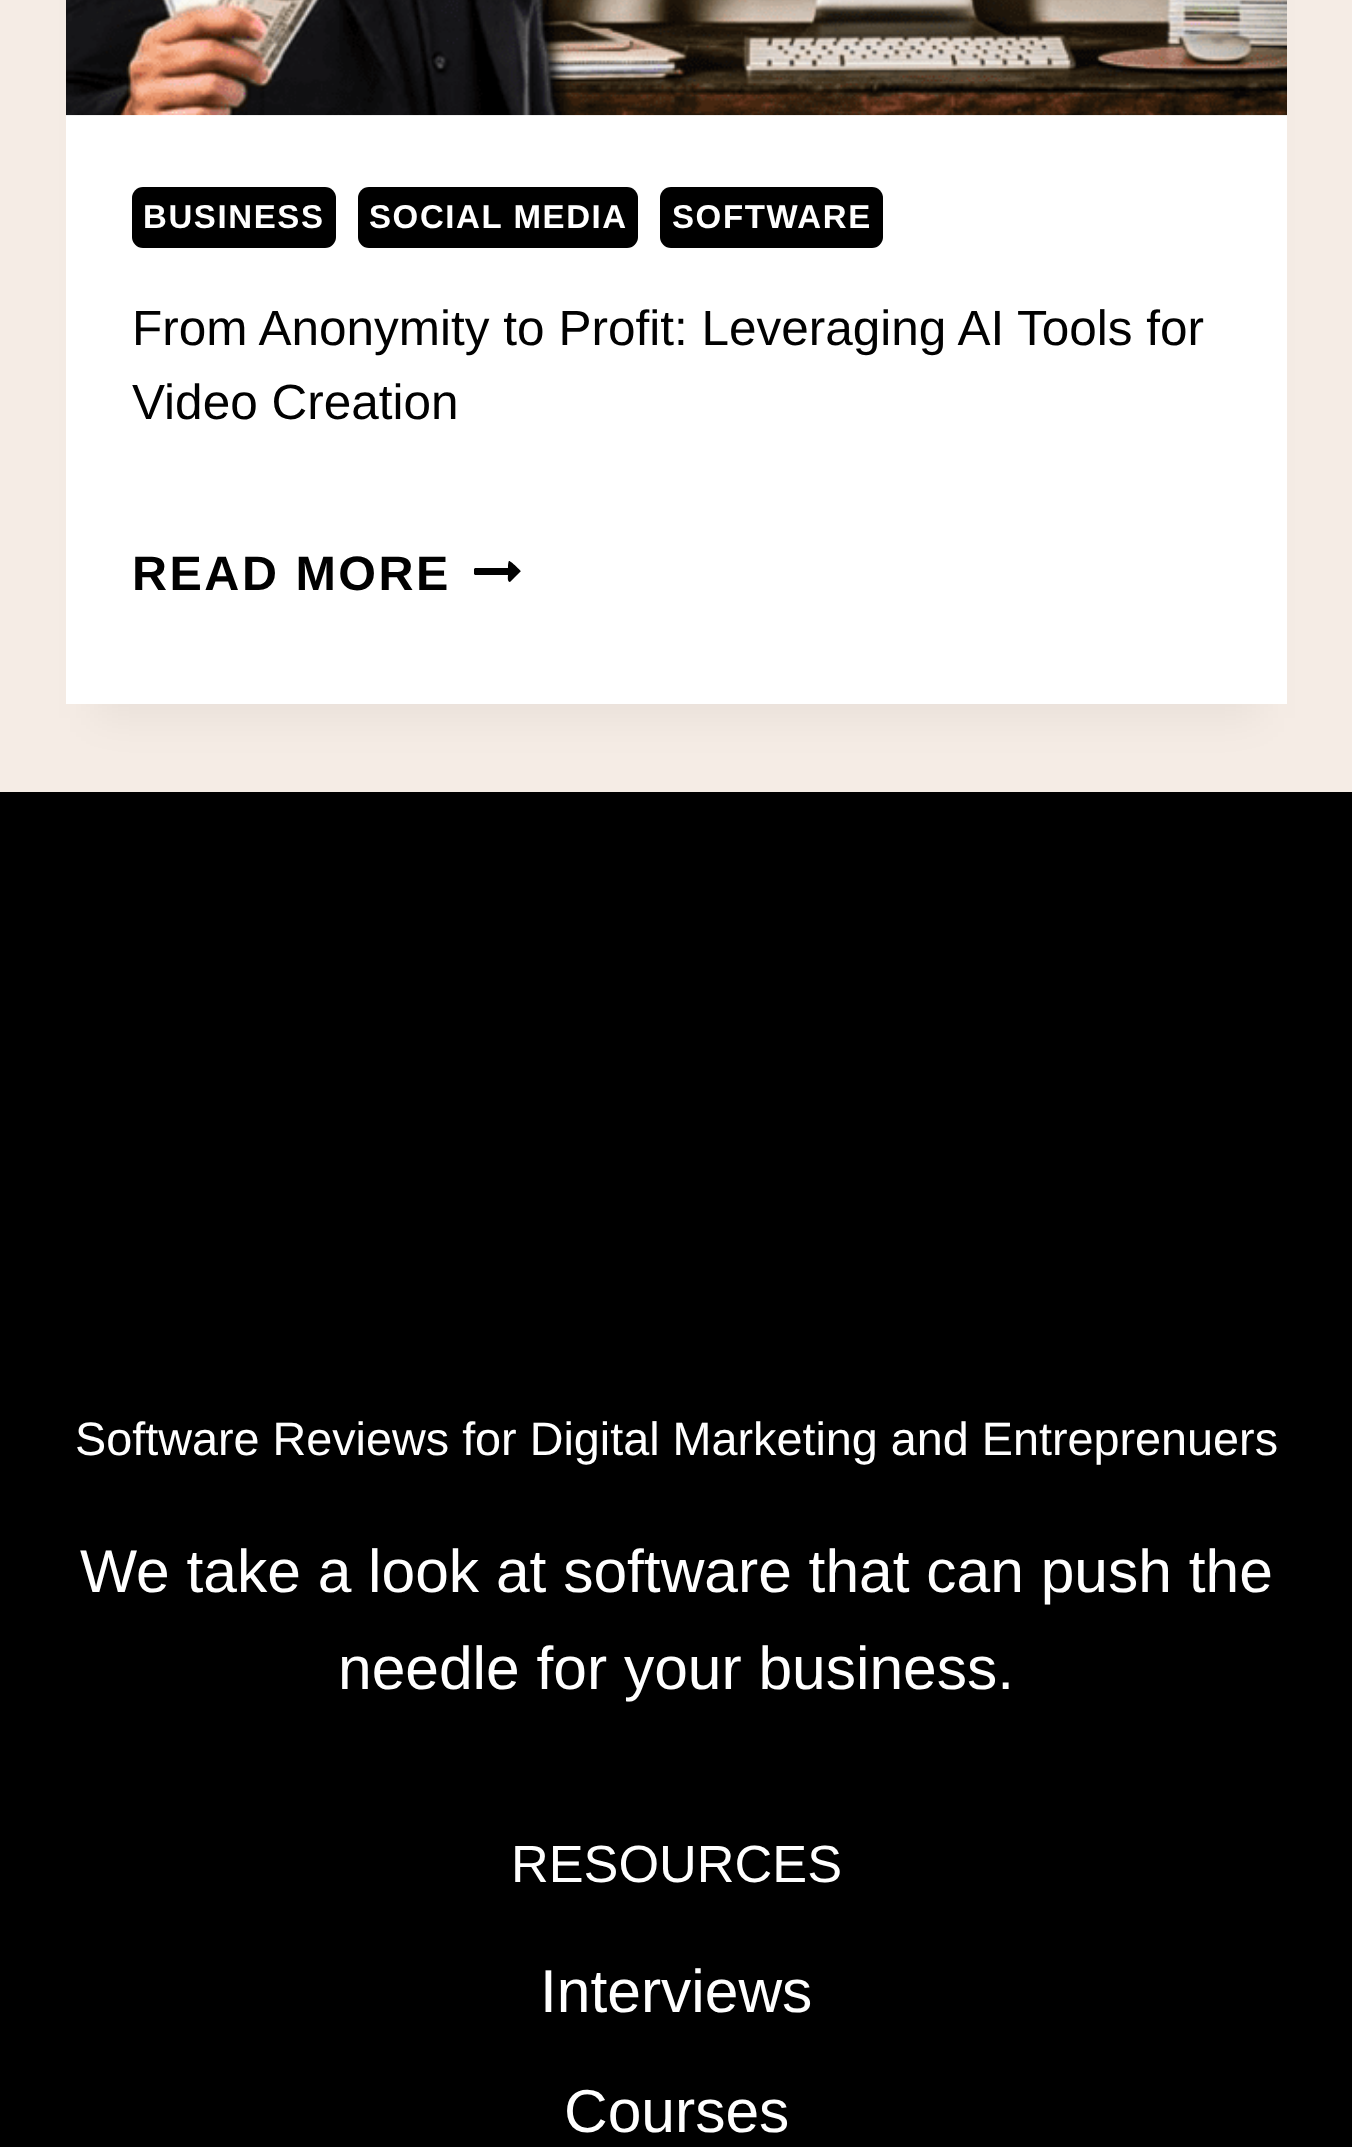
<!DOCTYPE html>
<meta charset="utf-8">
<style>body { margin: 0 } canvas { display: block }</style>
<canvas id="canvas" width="1352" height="2147"></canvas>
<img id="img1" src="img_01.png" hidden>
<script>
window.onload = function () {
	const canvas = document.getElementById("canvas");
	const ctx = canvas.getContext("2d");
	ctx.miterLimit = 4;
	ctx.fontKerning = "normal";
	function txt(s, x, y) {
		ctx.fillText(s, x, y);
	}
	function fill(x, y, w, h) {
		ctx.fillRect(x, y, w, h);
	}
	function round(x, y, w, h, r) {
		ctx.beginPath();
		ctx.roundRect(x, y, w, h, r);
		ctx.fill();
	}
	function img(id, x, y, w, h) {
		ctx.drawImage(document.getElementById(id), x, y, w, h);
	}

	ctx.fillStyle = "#F5ECE5";
	fill(0, 0, 1352, 2147);
	ctx.fillStyle = "rgba(0, 0, 0, 0.05)";
	ctx.filter = "blur(20.5px)";
	ctx.beginPath();
	ctx.rect(94, -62, 1166, 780);
	ctx.fill();
	ctx.filter = "none";
	ctx.fillStyle = "#FFFFFF";
	fill(66, 115, 1221, 589);
	img("img1", 66, 0, 1221, 116);
	ctx.fillStyle = "#000000";
	round(132, 187, 204, 61, 11);
	round(358, 187, 280, 61, 11);
	round(660, 187, 223, 61, 11);
	ctx.fillStyle = "#010101";
	ctx.beginPath();
	ctx.moveTo(521, 571);
	ctx.lineTo(510, 582);
	ctx.bezierCurveTo(507, 582, 508, 576, 508, 575);
	ctx.lineTo(475, 575);
	ctx.lineTo(474, 574);
	ctx.lineTo(474, 569);
	ctx.lineTo(475, 568);
	ctx.lineTo(508, 568);
	ctx.bezierCurveTo(508, 567, 508, 562, 509, 561);
	ctx.bezierCurveTo(510, 560, 521, 571, 521, 571);
	ctx.closePath();
	ctx.fill();
	ctx.fillStyle = "#000000";
	fill(0, 792, 1352, 1355);
	ctx.letterSpacing = "1.6px";
	ctx.font = "bold 33px Liberation Sans";
	ctx.fillStyle = "#FFFFFF";
	txt("BUSINESS", 143, 228);
	txt("SOCIAL MEDIA", 369, 228);
	txt("SOFTWARE", 672, 228);
	ctx.letterSpacing = "0px";
	ctx.font = "49.5px Liberation Sans";
	ctx.fillStyle = "#010101";
	txt("From Anonymity to Profit: Leveraging AI Tools for", 132, 345);
	txt("Video Creation", 132, 419);
	ctx.letterSpacing = "2.5px";
	ctx.font = "bold 48.5px Liberation Sans";
	txt("READ MORE", 132, 590);
	ctx.letterSpacing = "0px";
	ctx.font = "46.75px Liberation Sans";
	ctx.fillStyle = "#FFFFFF";
	txt("Software Reviews for Digital Marketing and Entreprenuers", 75, 1455);
	ctx.font = "60.5px Liberation Sans";
	txt("We take a look at software that can push the", 80, 1592);
	txt("needle for your business.", 338, 1689);
	ctx.font = "52.25px Liberation Sans";
	txt("RESOURCES", 511, 1882);
	ctx.font = "60.5px Liberation Sans";
	txt("Interviews", 540, 2012);
	txt("Courses", 564, 2132);
};
</script>
